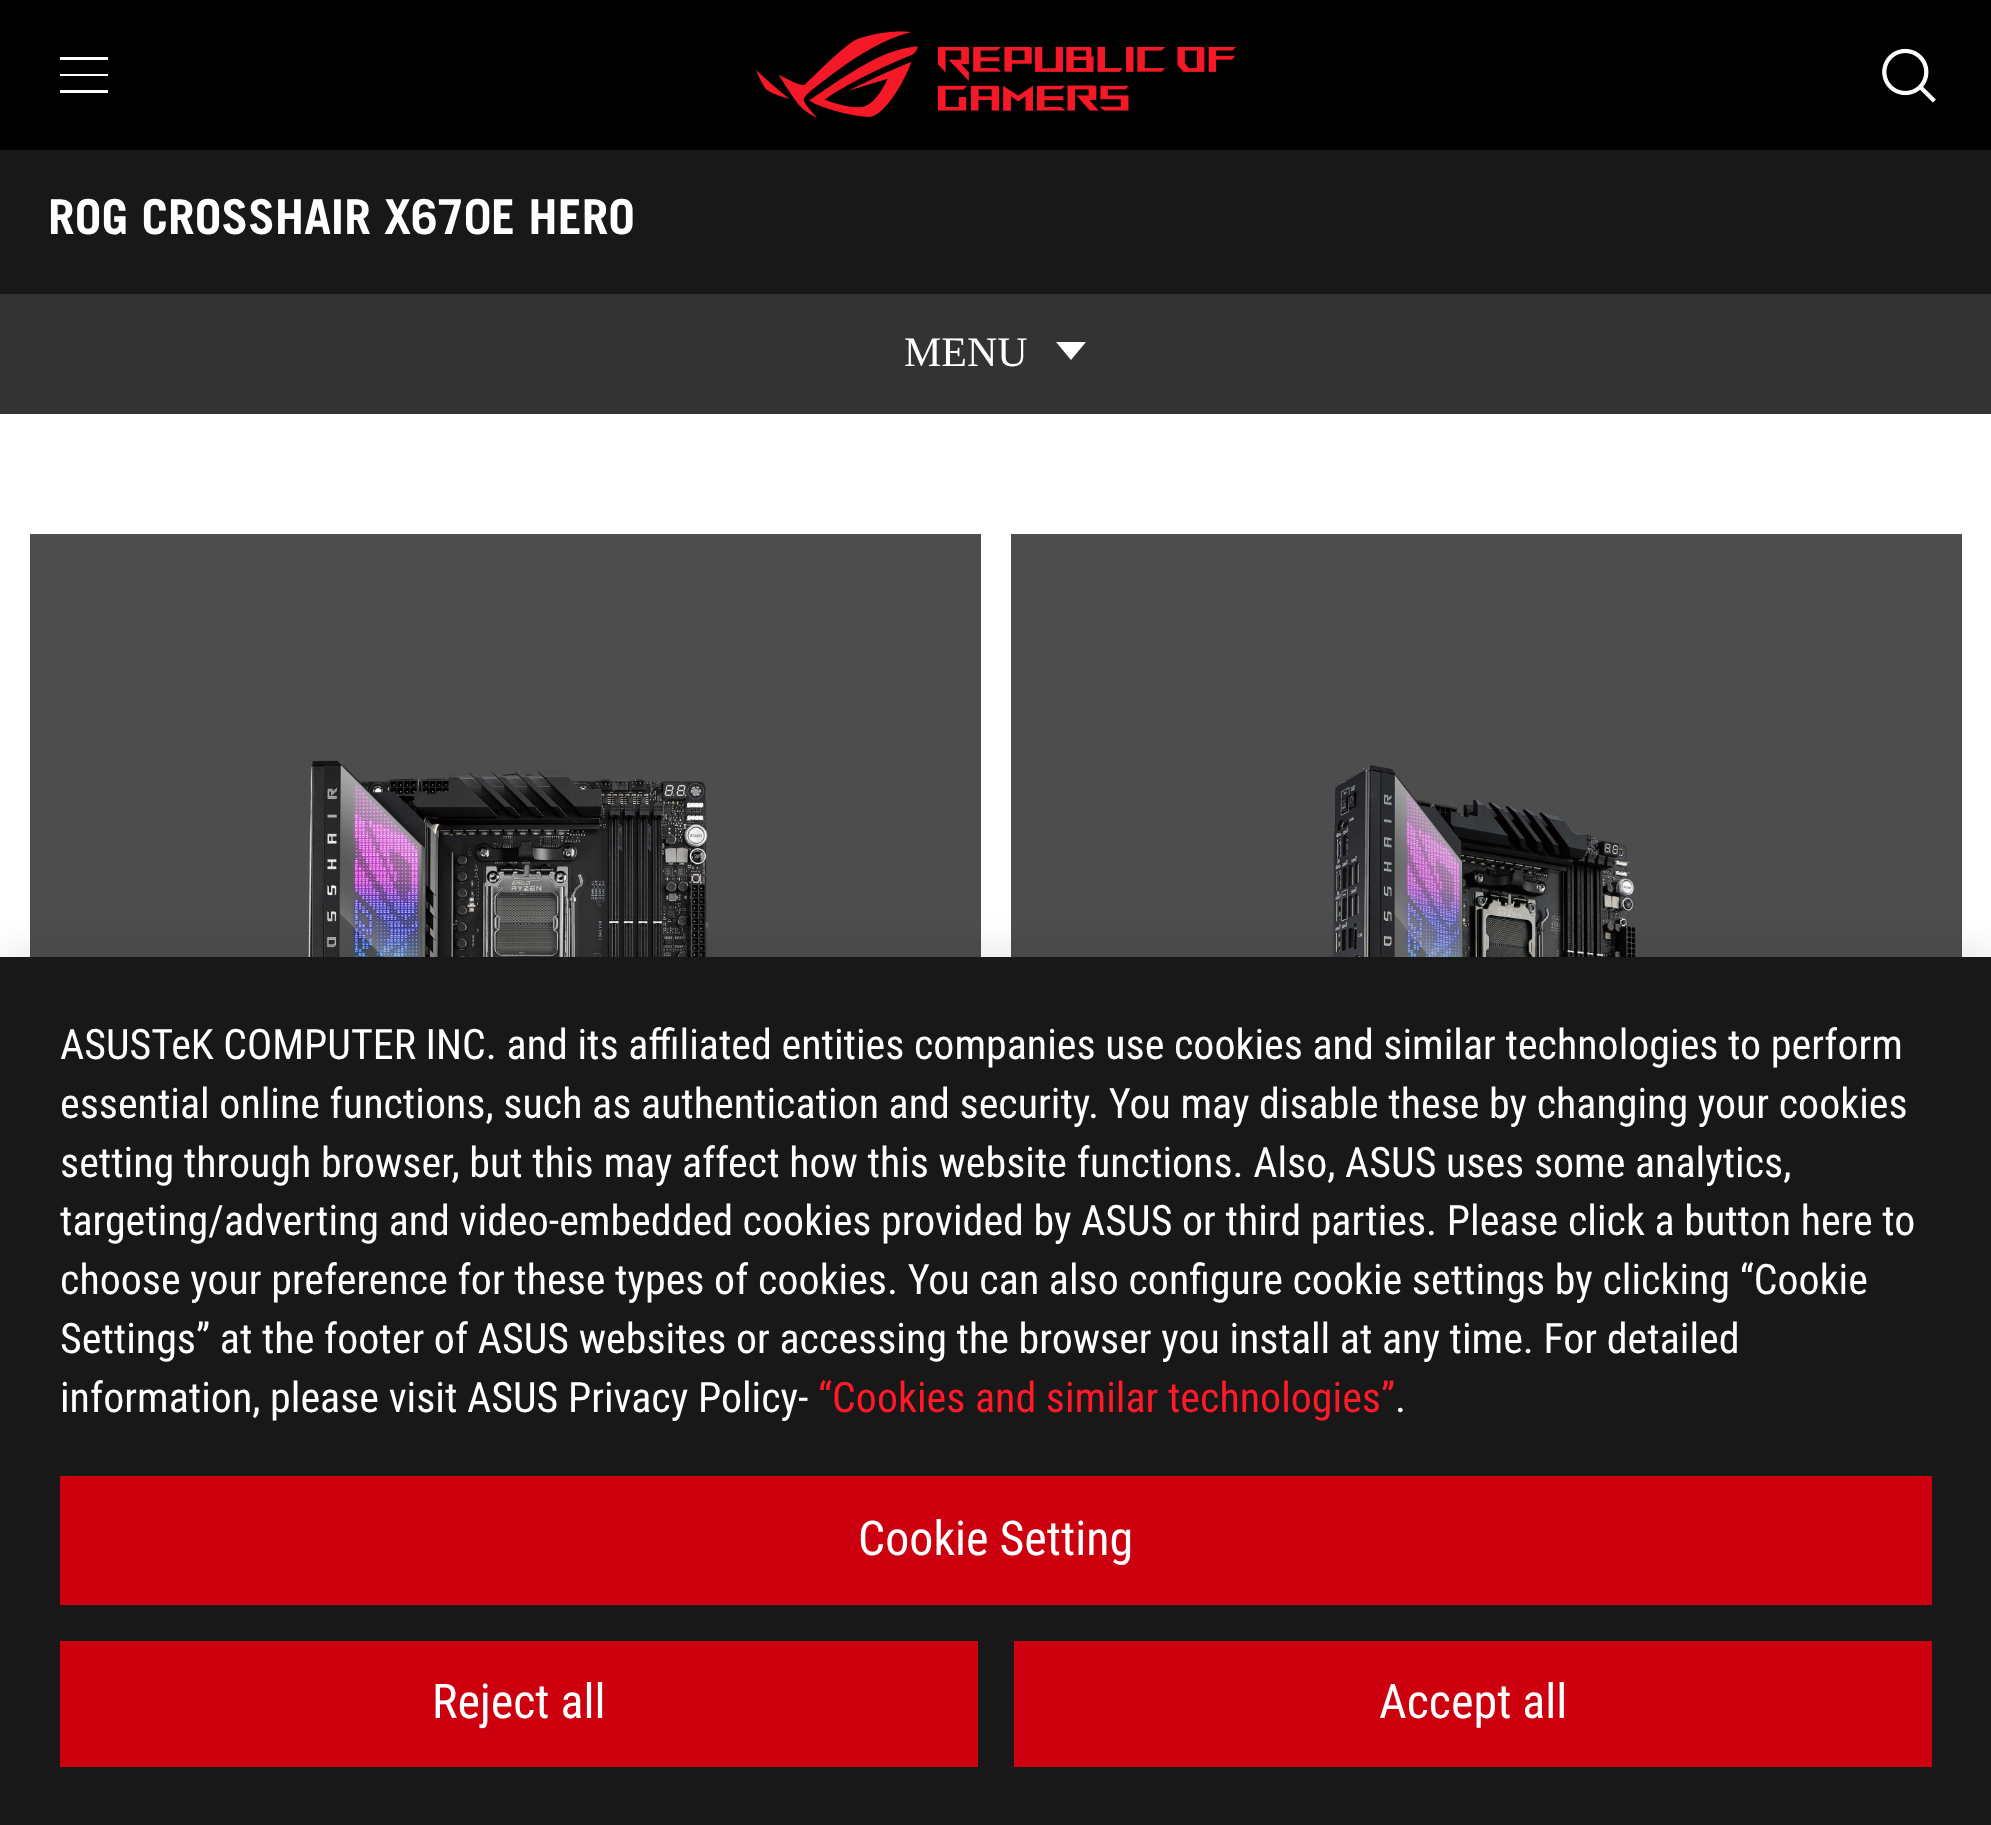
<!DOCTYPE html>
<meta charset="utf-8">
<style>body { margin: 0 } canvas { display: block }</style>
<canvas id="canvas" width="1991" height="1825"></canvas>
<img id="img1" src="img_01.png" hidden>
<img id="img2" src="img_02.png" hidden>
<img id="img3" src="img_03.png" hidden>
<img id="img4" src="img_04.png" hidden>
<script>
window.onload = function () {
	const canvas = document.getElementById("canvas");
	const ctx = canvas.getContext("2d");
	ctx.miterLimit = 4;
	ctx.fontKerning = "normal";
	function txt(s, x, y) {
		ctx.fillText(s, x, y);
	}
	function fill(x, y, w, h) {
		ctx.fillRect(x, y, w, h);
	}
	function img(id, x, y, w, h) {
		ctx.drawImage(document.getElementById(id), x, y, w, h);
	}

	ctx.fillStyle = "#FFFFFF";
	fill(0, 0, 1991, 1825);
	ctx.fillStyle = "#000000";
	fill(0, 0, 1991, 150);
	ctx.fillStyle = "#FFFFFF";
	ctx.beginPath();
	ctx.moveTo(108, 57);
	ctx.lineTo(60, 57);
	ctx.lineTo(60, 60);
	ctx.lineTo(108, 60);
	ctx.closePath();
	ctx.moveTo(108, 74);
	ctx.lineTo(60, 74);
	ctx.lineTo(60, 76);
	ctx.lineTo(108, 76);
	ctx.closePath();
	ctx.moveTo(60, 90);
	ctx.lineTo(108, 90);
	ctx.lineTo(108, 93);
	ctx.lineTo(60, 93);
	ctx.closePath();
	ctx.fill("evenodd");
	img("img1", 756, 31, 480, 87);
	img("img2", 1882, 48, 54, 55);
	ctx.fillStyle = "#181818";
	fill(0, 150, 1991, 144);
	ctx.fillStyle = "#333333";
	fill(0, 294, 1991, 120);
	ctx.fillStyle = "#FFFFFF";
	ctx.beginPath();
	ctx.moveTo(1056, 342);
	ctx.lineTo(1071, 360);
	ctx.lineTo(1086, 342);
	ctx.closePath();
	ctx.fill();
	ctx.fillStyle = "#4D4D4D";
	fill(30, 534, 951, 423);
	img("img3", 308, 760, 400, 197);
	fill(1011, 534, 951, 423);
	img("img4", 1332, 765, 305, 192);
	ctx.fillStyle = "rgba(0, 0, 0, 0.1)";
	ctx.filter = "blur(18px)";
	ctx.beginPath();
	ctx.rect(3, 951, 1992, 870);
	ctx.fill();
	ctx.filter = "none";
	ctx.fillStyle = "#181818";
	fill(0, 957, 1991, 868);
	ctx.fillStyle = "#CC000E";
	fill(60, 1476, 1872, 129);
	fill(60, 1641, 918, 126);
	fill(1014, 1641, 918, 126);
	ctx.font = "bold 48px Trade Gothic";
	ctx.fillStyle = "#FFFFFF";
	txt("ROG CROSSHAIR X670E HERO", 48, 234);
	ctx.font = "42px Liberation Serif";
	txt("MENU", 904, 366);
	ctx.font = "42px Roboto Condensed";
	txt("ASUSTeK COMPUTER INC. and its affiliated entities companies use cookies and similar technologies to perform", 60, 1059);
	txt("essential online functions, such as authentication and security. You may disable these by changing your cookies", 60, 1118);
	txt("setting through browser, but this may affect how this website functions. Also, ASUS uses some analytics,", 60, 1177);
	txt("targeting/adverting and video-embedded cookies provided by ASUS or third parties. Please click a button here to", 60, 1235);
	txt("choose your preference for these types of cookies. You can also configure cookie settings by clicking “Cookie", 60, 1294);
	txt("Settings” at the footer of ASUS websites or accessing the browser you install at any time. For detailed", 60, 1353);
	txt("information, please visit ASUS Privacy Policy-", 60, 1412);
	ctx.fillStyle = "#FF1929";
	txt("“Cookies and similar technologies”", 818, 1412);
	ctx.fillStyle = "#FFFFFF";
	txt(".", 1395, 1412);
	ctx.font = "48px Roboto Condensed";
	txt("Cookie Setting", 858, 1555);
	txt("Reject all", 432, 1718);
	txt("Accept all", 1379, 1718);
};
</script>
